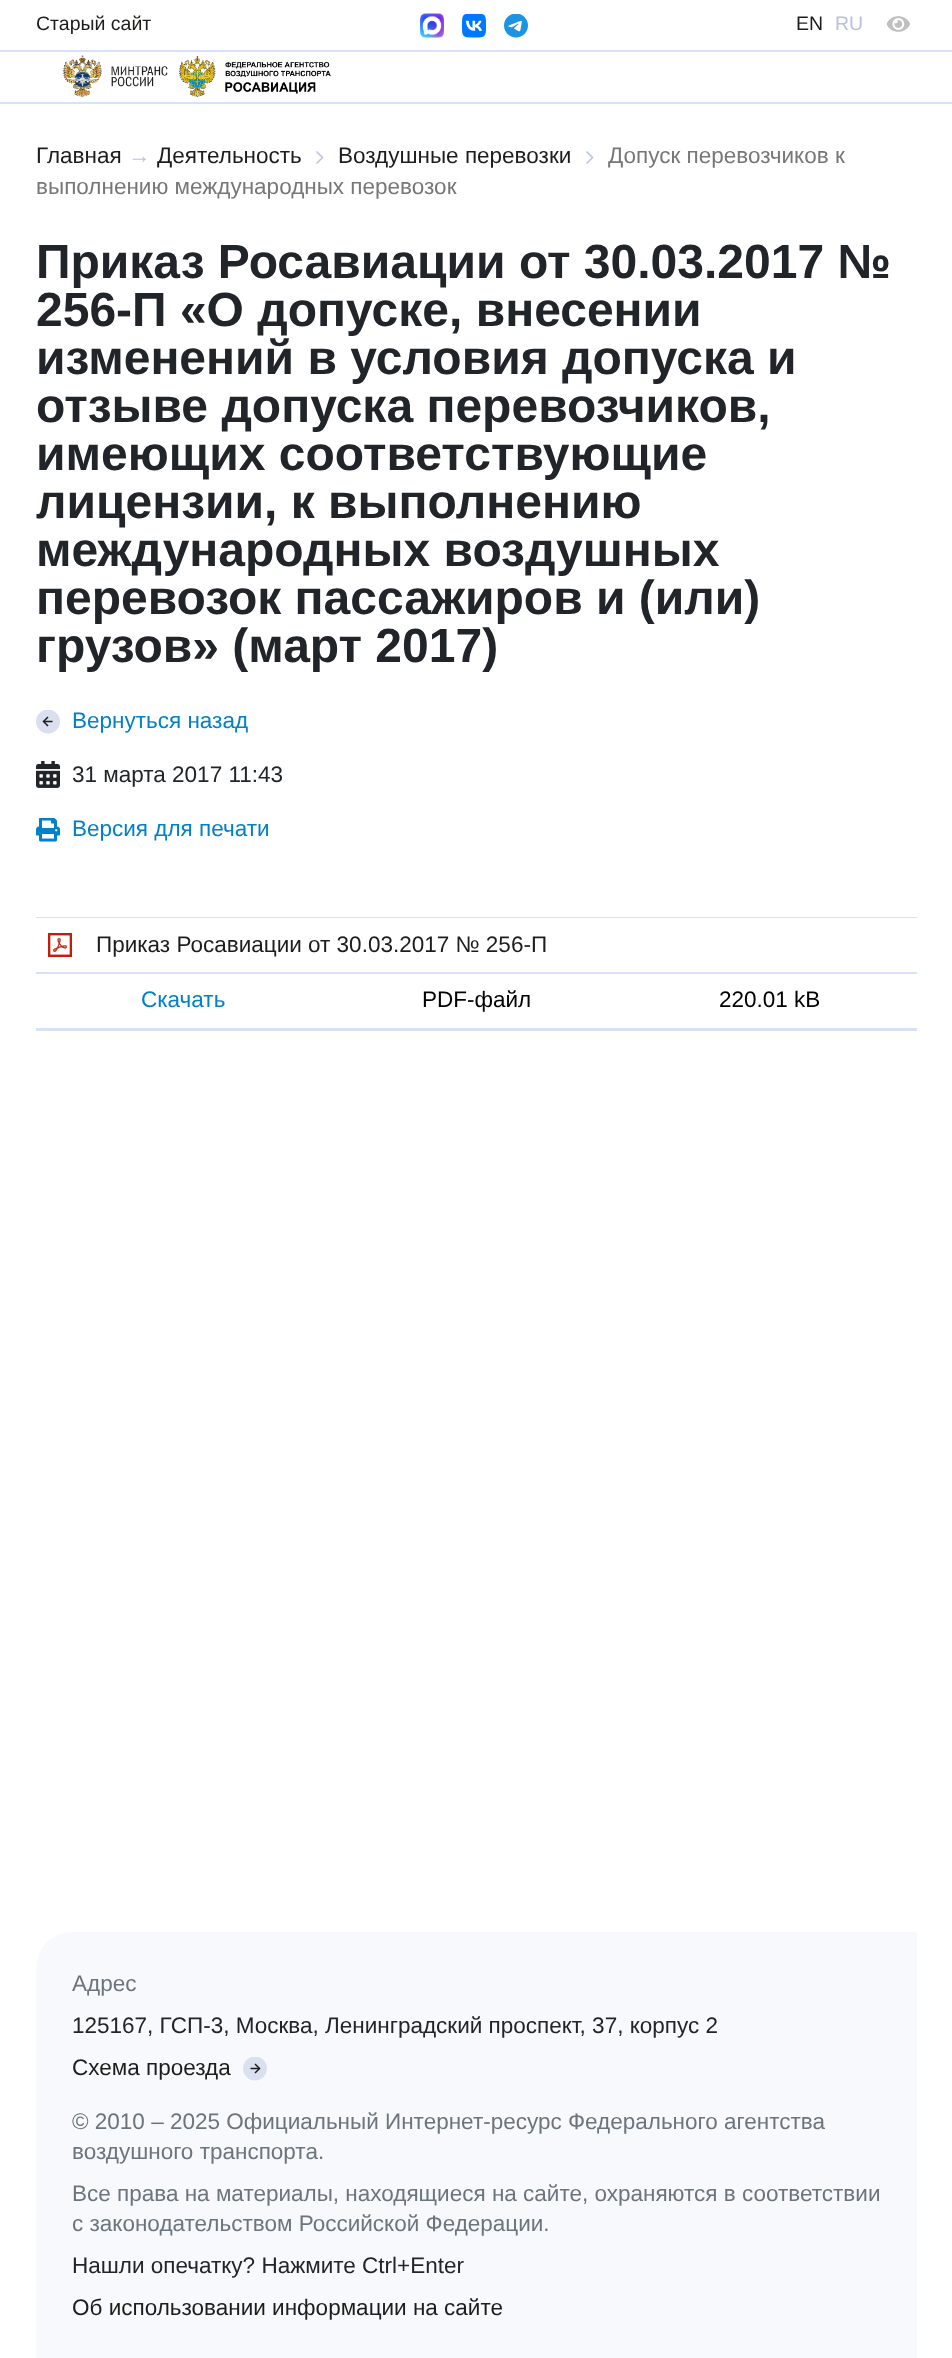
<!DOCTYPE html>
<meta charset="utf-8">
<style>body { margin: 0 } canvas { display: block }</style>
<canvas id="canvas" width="952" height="2358"></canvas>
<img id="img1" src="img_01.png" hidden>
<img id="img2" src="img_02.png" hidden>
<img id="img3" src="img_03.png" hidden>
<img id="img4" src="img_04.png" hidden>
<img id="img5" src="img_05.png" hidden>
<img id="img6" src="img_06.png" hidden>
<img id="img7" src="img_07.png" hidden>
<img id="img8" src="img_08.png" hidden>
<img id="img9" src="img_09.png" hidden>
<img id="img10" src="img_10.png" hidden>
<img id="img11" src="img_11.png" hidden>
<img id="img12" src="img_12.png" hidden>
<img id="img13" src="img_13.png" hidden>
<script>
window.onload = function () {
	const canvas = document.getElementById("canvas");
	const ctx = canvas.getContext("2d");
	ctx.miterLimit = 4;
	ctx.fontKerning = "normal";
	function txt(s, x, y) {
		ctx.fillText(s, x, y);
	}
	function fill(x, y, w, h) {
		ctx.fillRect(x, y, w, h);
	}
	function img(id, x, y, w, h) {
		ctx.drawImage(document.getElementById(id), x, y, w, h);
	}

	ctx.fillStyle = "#FFFFFF";
	fill(0, 0, 952, 2358);
	img("img1", 420, 13, 24, 25);
	img("img2", 462, 14, 24, 24);
	img("img3", 504, 14, 24, 24);
	img("img4", 887, 16, 23, 16);
	ctx.fillStyle = "#D6E0FF";
	fill(0, 50, 952, 2);
	fill(0, 102, 952, 2);
	img("img5", 63, 55, 39, 43);
	img("img6", 111, 66, 57, 21);
	img("img7", 179, 56, 37, 41);
	img("img8", 225, 62, 106, 32);
	ctx.beginPath();
	ctx.moveTo(316.5, 163.5);
	ctx.lineTo(322.5, 157.5);
	ctx.lineTo(316.5, 151.5);
	ctx.strokeStyle = "#B8C2E0";
	ctx.lineWidth = 1.5;
	ctx.stroke();
	ctx.beginPath();
	ctx.moveTo(586.5, 163.5);
	ctx.lineTo(592.5, 157.5);
	ctx.lineTo(586.5, 151.5);
	ctx.stroke();
	img("img9", 36, 710, 24, 24);
	img("img10", 36, 761, 24, 27);
	img("img11", 36, 818, 24, 24);
	ctx.fillStyle = "#DEE2E6";
	fill(36, 917, 881, 1);
	fill(36, 1030, 881, 1);
	ctx.fillStyle = "#D6E0FF";
	fill(36, 972, 881, 2);
	img("img12", 48, 933, 24, 24);
	fill(36, 1028, 881, 2);
	ctx.fillStyle = "#F8F9FC";
	ctx.beginPath();
	ctx.roundRect(36, 1932, 881, 426, [36, 0, 0, 0]);
	ctx.fill();
	img("img13", 243, 2057, 24, 24);
	ctx.font = "19.5px Liberation Sans";
	ctx.fillStyle = "#1D1D1B";
	txt("Старый сайт", 36, 30);
	txt("EN", 796, 30);
	ctx.fillStyle = "#B8C2E0";
	txt("RU", 835, 30);
	ctx.font = "22.5px Liberation Sans";
	ctx.fillStyle = "#1D1D1B";
	txt("Главная", 36, 163);
	ctx.fillStyle = "#B8C2E0";
	txt("→", 128, 163);
	ctx.fillStyle = "#1D1D1B";
	txt("Деятельность", 157, 163);
	txt("Воздушные перевозки", 338, 163);
	ctx.fillStyle = "#777777";
	txt("Допуск перевозчиков к", 608, 163);
	txt("выполнению международных перевозок", 36, 194);
	ctx.font = "bold 48px Liberation Sans";
	ctx.fillStyle = "#212529";
	txt("Приказ Росавиации от 30.03.2017 №", 36, 278);
	txt("256-П «О допуске, внесении", 36, 326);
	txt("изменений в условия допуска и", 36, 374);
	txt("отзыве допуска перевозчиков,", 36, 422);
	txt("имеющих соответствующие", 36, 470);
	txt("лицензии, к выполнению", 36, 518);
	txt("международных воздушных", 36, 566);
	txt("перевозок пассажиров и (или)", 36, 614);
	txt("грузов» (март 2017)", 36, 662);
	ctx.font = "22.5px Liberation Sans";
	ctx.fillStyle = "#0081C8";
	txt("Вернуться назад", 72, 728);
	ctx.fillStyle = "#212529";
	txt("31 марта 2017 11:43", 72, 782);
	ctx.fillStyle = "#0081C8";
	txt("Версия для печати", 72, 836);
	ctx.fillStyle = "#1D1D1B";
	txt("Приказ Росавиации от 30.03.2017 № 256-П", 96, 952);
	ctx.fillStyle = "#0081C8";
	txt("Скачать", 141, 1007);
	ctx.fillStyle = "#000000";
	txt("PDF-файл", 422, 1007);
	txt("220.01 kB", 719, 1007);
	ctx.fillStyle = "#6C757D";
	txt("Адрес", 72, 1991);
	ctx.fillStyle = "#212529";
	txt("125167, ГСП-3, Москва, Ленинградский проспект, 37, корпус 2", 72, 2033);
	ctx.fillStyle = "#1D1D1B";
	txt("Схема проезда", 72, 2075);
	ctx.fillStyle = "#6C757D";
	txt("© 2010 – 2025 Официальный Интернет-ресурс Федерального агентства", 72, 2129);
	txt("воздушного транспорта.", 72, 2159);
	txt("Все права на материалы, находящиеся на сайте, охраняются в соответствии", 72, 2201);
	txt("с законодательством Российской Федерации.", 72, 2231);
	ctx.fillStyle = "#212529";
	txt("Нашли опечатку? Нажмите Ctrl+Enter", 72, 2273);
	ctx.fillStyle = "#1D1D1B";
	txt("Об использовании информации на сайте", 72, 2315);
};
</script>
